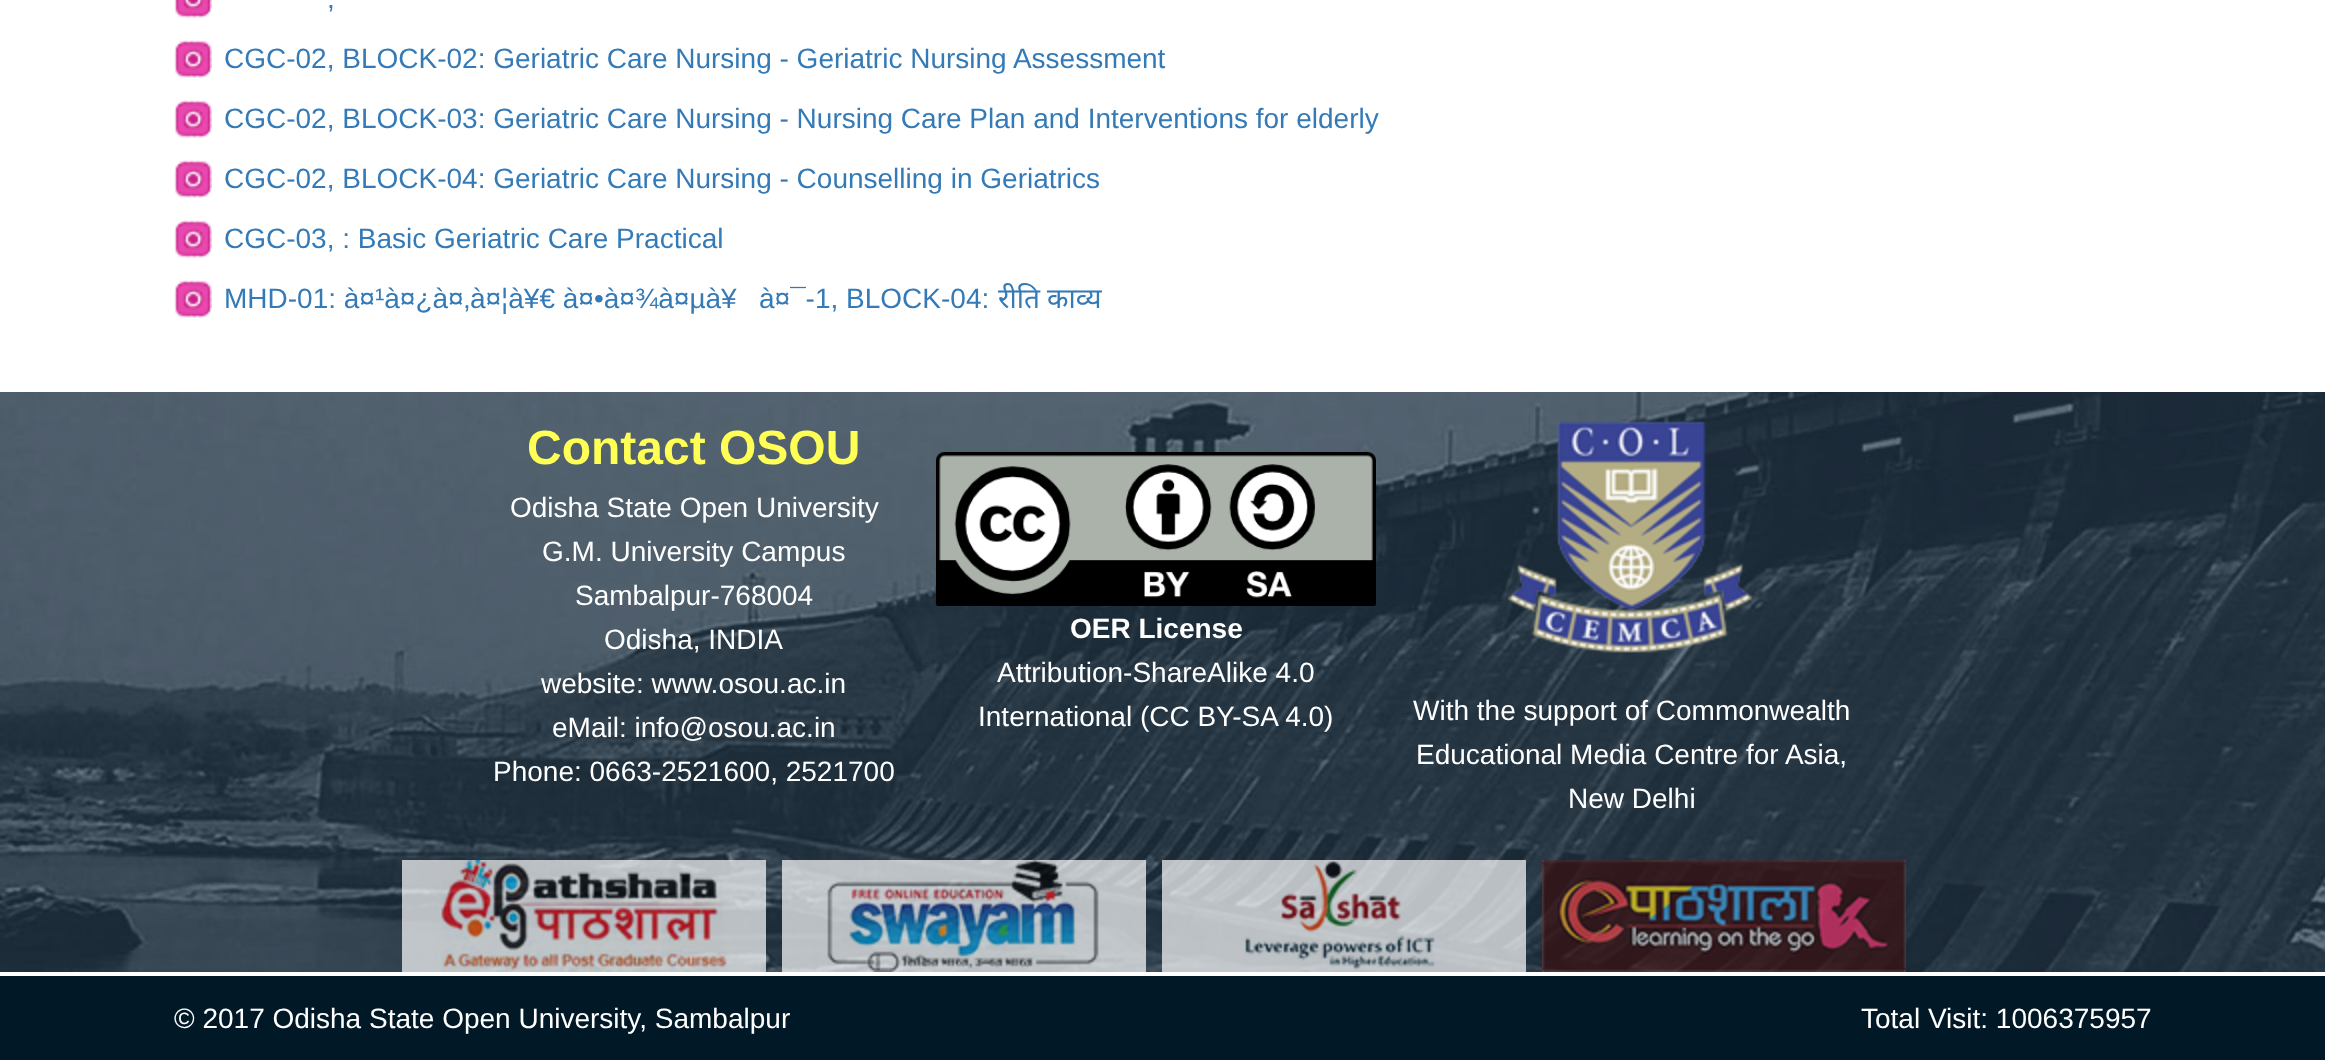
<!DOCTYPE html>
<meta charset="utf-8">
<style>body { margin: 0 } canvas { display: block }</style>
<canvas id="canvas" width="2325" height="1060"></canvas>
<img id="img1" src="img_01.png" hidden>
<img id="img2" src="img_02.png" hidden>
<img id="img3" src="img_03.png" hidden>
<img id="img4" src="img_04.png" hidden>
<img id="img5" src="img_05.png" hidden>
<img id="img6" src="img_06.png" hidden>
<img id="img7" src="img_07.png" hidden>
<img id="img8" src="img_08.png" hidden>
<img id="img9" src="img_09.png" hidden>
<script>
window.onload = function () {
	const canvas = document.getElementById("canvas");
	const ctx = canvas.getContext("2d");
	ctx.miterLimit = 4;
	ctx.fontKerning = "normal";
	function txt(s, x, y) {
		ctx.fillText(s, x, y);
	}
	function fill(x, y, w, h) {
		ctx.fillRect(x, y, w, h);
	}
	function img(id, x, y, w, h) {
		ctx.drawImage(document.getElementById(id), x, y, w, h);
	}

	ctx.fillStyle = "#FFFFFF";
	fill(0, 0, 2325, 1060);
	img("img1", 174, 0, 38, 18);
	img("img2", 174, 40, 38, 38);
	img("img2", 174, 100, 38, 38);
	img("img2", 174, 160, 38, 38);
	img("img2", 174, 220, 38, 38);
	img("img2", 174, 280, 38, 38);
	img("img3", 0, 392, 2325, 580);
	img("img4", 936, 452, 440, 154);
	img("img5", 1507, 421, 246, 232);
	img("img6", 402, 860, 364, 112);
	img("img7", 782, 860, 364, 112);
	img("img8", 1162, 860, 364, 112);
	img("img9", 1542, 860, 364, 112);
	ctx.fillStyle = "#011826";
	fill(0, 976, 2325, 84);
	ctx.font = "28px Liberation Sans";
	ctx.fillStyle = "#337AB7";
	txt(",", 327, 8);
	txt("CGC-02, BLOCK-02: Geriatric Care Nursing - Geriatric Nursing Assessment", 224, 68);
	txt("CGC-02, BLOCK-03: Geriatric Care Nursing - Nursing Care Plan and Interventions for elderly", 224, 128);
	txt("CGC-02, BLOCK-04: Geriatric Care Nursing - Counselling in Geriatrics", 224, 188);
	txt("CGC-03, : Basic Geriatric Care Practical", 224, 248);
	txt("MHD-01: à¤¹à¤¿à¤‚à¤¦à¥€ à¤•à¤¾à¤µà¥", 224, 308);
	txt("à¤¯-1, BLOCK-04:", 759, 308);
	ctx.font = "28px Noto Sans";
	txt("रीति", 998, 308);
	txt("काव्य", 1047, 308);
	ctx.font = "bold 48px Liberation Sans";
	ctx.fillStyle = "#FFFF55";
	txt("Contact OSOU", 527, 464);
	ctx.font = "28px Liberation Sans";
	ctx.fillStyle = "#FFFFFF";
	txt("Odisha State Open University", 510, 517);
	txt("G.M. University Campus", 542, 561);
	txt("Sambalpur-768004", 575, 605);
	txt("Odisha, INDIA", 604, 649);
	txt("website: www.osou.ac.in", 541, 693);
	txt("eMail: info@osou.ac.in", 552, 737);
	txt("Phone: 0663-2521600, 2521700", 493, 781);
	ctx.font = "bold 28px Liberation Sans";
	txt("OER License", 1070, 638);
	ctx.font = "28px Liberation Sans";
	txt("Attribution-ShareAlike 4.0", 997, 682);
	txt("International (CC BY-SA 4.0)", 978, 726);
	txt("With the support of Commonwealth", 1413, 720);
	txt("Educational Media Centre for Asia,", 1416, 764);
	txt("New Delhi", 1568, 808);
	txt("© 2017 Odisha State Open University, Sambalpur", 174, 1028);
	txt("Total Visit: 1006375957", 1861, 1028);
};
</script>
